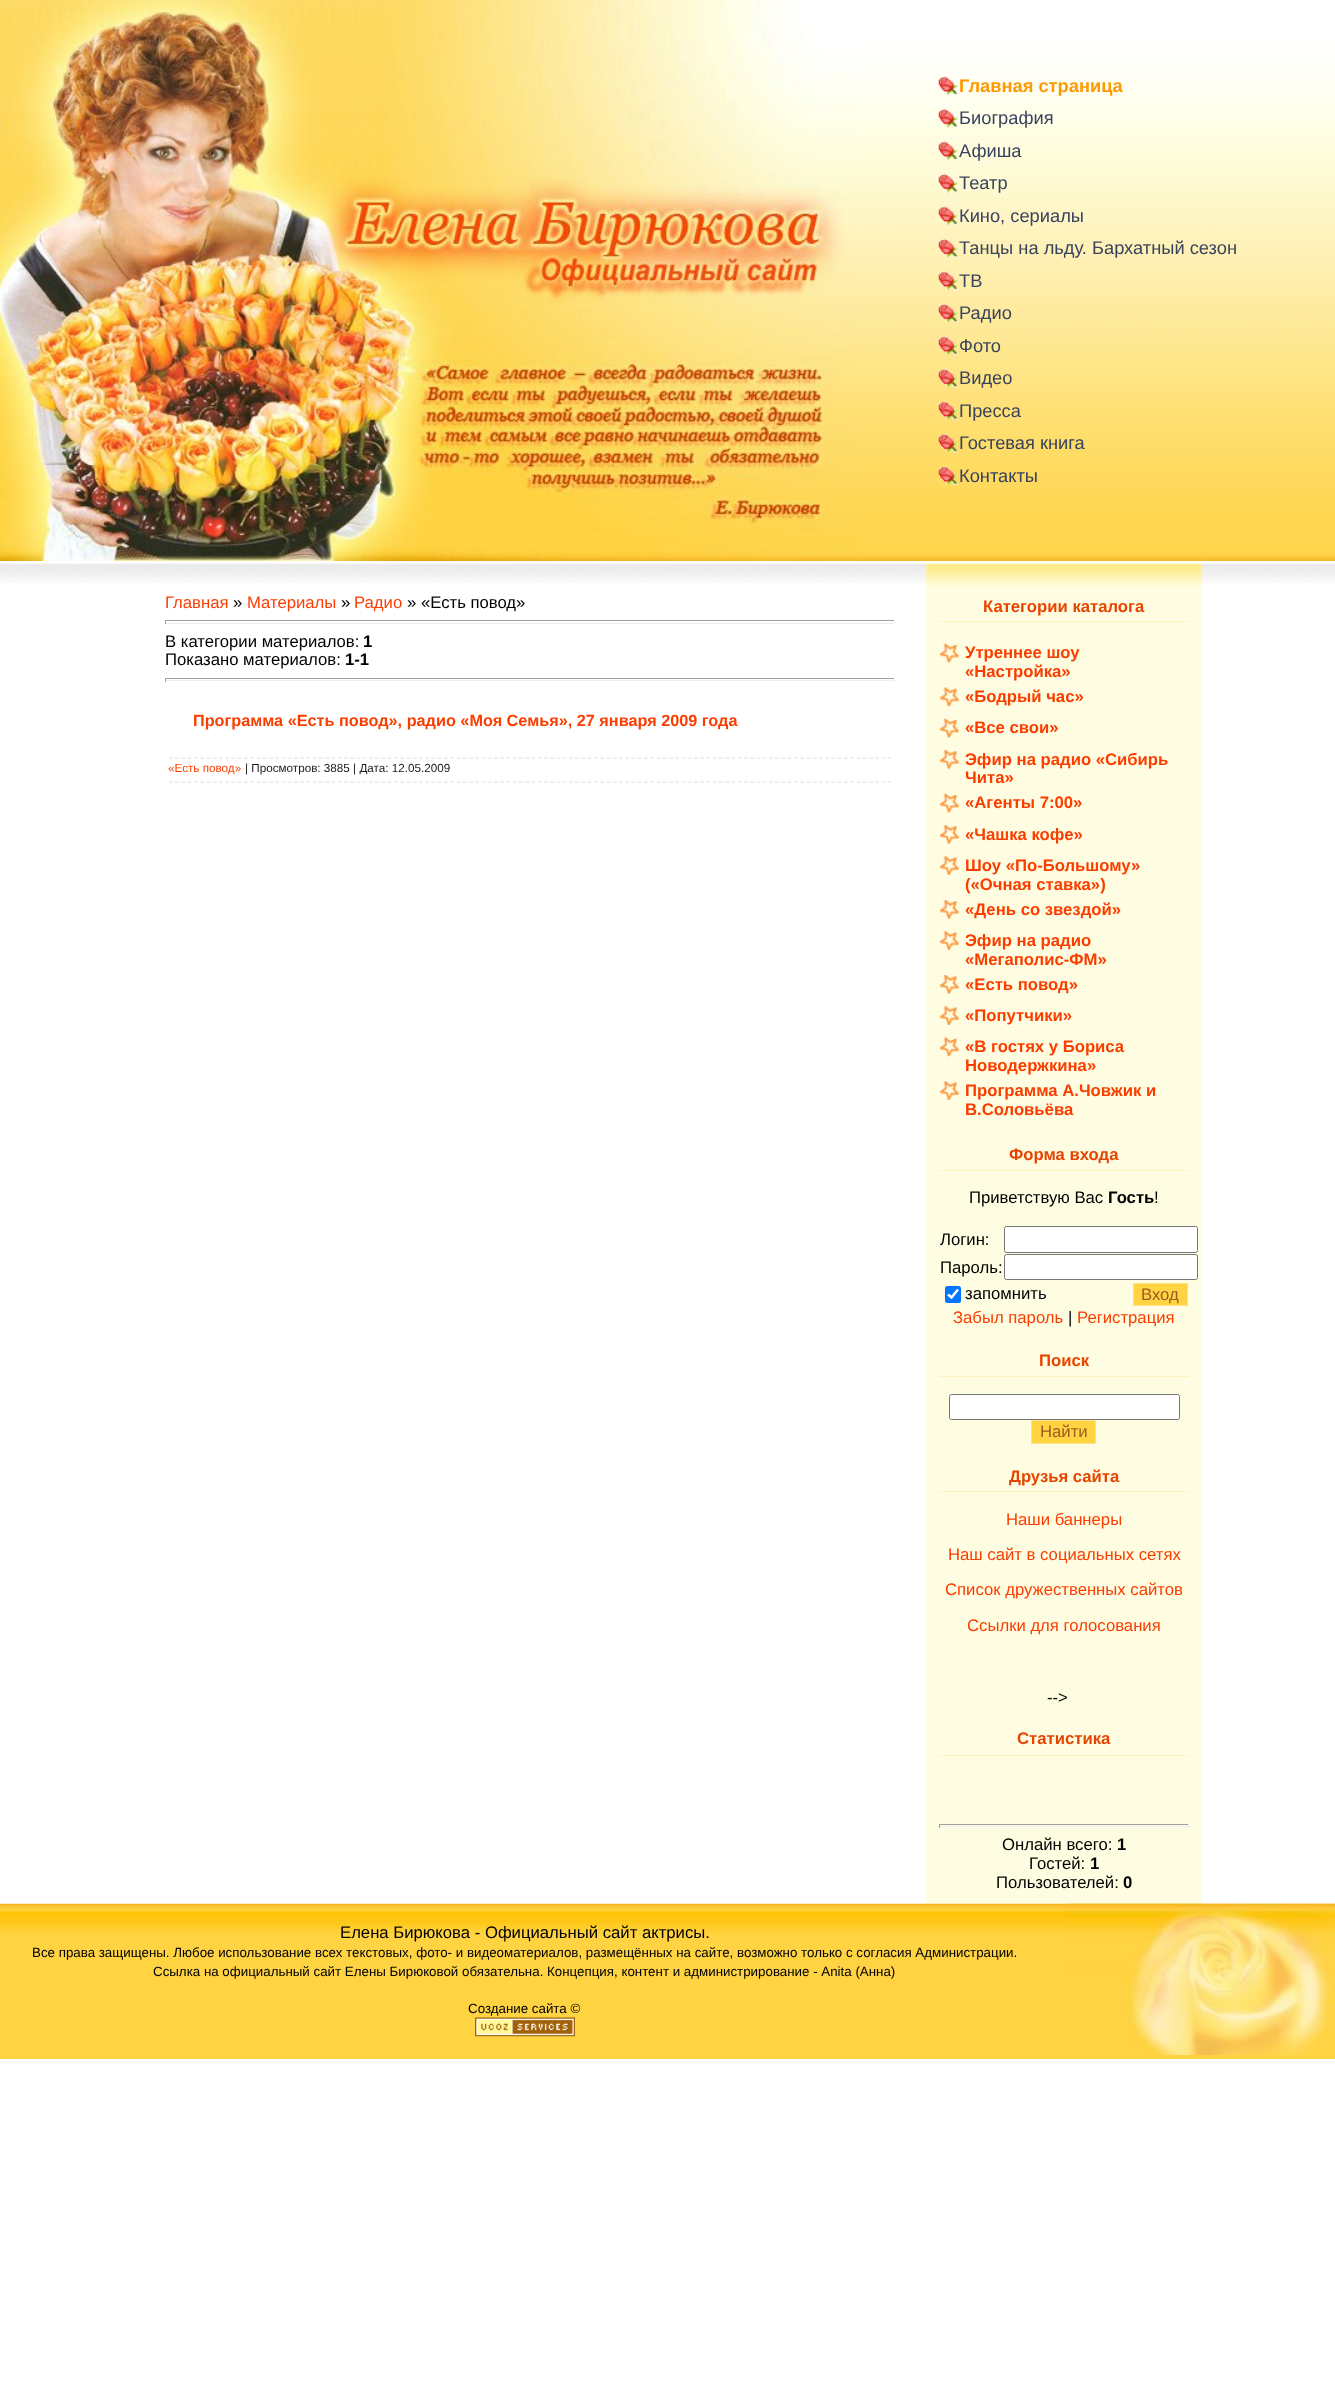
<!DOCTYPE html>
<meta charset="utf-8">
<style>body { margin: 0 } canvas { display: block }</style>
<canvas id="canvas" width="1335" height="2397"></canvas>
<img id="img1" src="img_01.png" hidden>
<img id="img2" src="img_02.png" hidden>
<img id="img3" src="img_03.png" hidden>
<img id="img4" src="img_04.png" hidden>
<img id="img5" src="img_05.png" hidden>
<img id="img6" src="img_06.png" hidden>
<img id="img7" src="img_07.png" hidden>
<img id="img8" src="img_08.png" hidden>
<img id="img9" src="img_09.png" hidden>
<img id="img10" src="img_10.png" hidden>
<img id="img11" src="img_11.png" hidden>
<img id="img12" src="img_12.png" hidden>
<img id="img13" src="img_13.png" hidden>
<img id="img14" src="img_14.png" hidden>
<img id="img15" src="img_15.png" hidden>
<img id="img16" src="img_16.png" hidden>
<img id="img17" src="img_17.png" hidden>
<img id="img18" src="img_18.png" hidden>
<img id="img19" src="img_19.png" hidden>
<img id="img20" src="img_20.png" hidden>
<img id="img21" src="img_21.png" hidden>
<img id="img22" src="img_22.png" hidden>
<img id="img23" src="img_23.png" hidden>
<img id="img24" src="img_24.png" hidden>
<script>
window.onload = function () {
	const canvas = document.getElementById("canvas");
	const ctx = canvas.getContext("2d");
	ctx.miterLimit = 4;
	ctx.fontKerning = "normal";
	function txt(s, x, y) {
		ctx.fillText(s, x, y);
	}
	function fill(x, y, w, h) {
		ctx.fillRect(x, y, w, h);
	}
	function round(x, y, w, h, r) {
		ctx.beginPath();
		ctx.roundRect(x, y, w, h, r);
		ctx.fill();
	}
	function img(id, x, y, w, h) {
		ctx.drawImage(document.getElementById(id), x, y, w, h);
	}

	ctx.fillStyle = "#FFFFFF";
	fill(0, 0, 1335, 2397);
	img("img1", 855, 0, 480, 561);
	img("img2", 0, 0, 855, 561);
	img("img3", 938, 76, 20, 20);
	img("img4", 938, 108, 20, 20);
	img("img5", 938, 141, 20, 20);
	img("img6", 938, 173, 20, 20);
	img("img7", 938, 206, 20, 20);
	img("img8", 938, 238, 20, 20);
	img("img9", 938, 271, 20, 20);
	img("img10", 938, 303, 20, 20);
	img("img11", 938, 336, 20, 20);
	img("img12", 938, 368, 20, 20);
	img("img13", 938, 401, 20, 20);
	img("img14", 938, 433, 20, 20);
	img("img15", 938, 466, 20, 20);
	img("img16", 0, 563, 1335, 20);
	ctx.fillStyle = "#9F9F9F";
	fill(165, 620, 730, 1);
	ctx.fillStyle = "#EEEEEE";
	fill(894, 620, 1, 4);
	fill(165, 623, 730, 1);
	ctx.fillStyle = "#9F9F9F";
	fill(165, 620, 1, 4);
	fill(165, 678, 730, 1);
	ctx.fillStyle = "#EEEEEE";
	fill(894, 678, 1, 4);
	fill(165, 680, 730, 1);
	ctx.fillStyle = "#9F9F9F";
	fill(165, 678, 1, 4);
	ctx.beginPath();
	ctx.moveTo(169, 758);
	ctx.lineTo(891, 758);
	ctx.strokeStyle = "#DDDDDD";
	ctx.lineWidth = 1.2;
	ctx.setLineDash([3.75, 2.5]);
	ctx.stroke();
	ctx.beginPath();
	ctx.moveTo(169, 782);
	ctx.lineTo(891, 782);
	ctx.stroke();
	ctx.fillStyle = "#FEFDE2";
	fill(926, 561, 275, 1343);
	img("img17", 926, 561, 276, 65);
	ctx.fillStyle = "#FEF4B7";
	fill(939, 621, 250, 1);
	img("img18", 940, 643, 19, 20);
	img("img19", 940, 687, 19, 20);
	img("img18", 940, 718, 19, 20);
	img("img20", 940, 750, 19, 19);
	img("img18", 940, 793, 19, 20);
	img("img20", 940, 825, 19, 19);
	img("img21", 940, 856, 19, 19);
	img("img20", 940, 900, 19, 19);
	img("img21", 940, 931, 19, 19);
	img("img20", 940, 975, 19, 19);
	img("img21", 940, 1006, 19, 19);
	img("img19", 940, 1037, 19, 20);
	img("img21", 940, 1081, 19, 19);
	fill(939, 1170, 250, 1);
	ctx.fillStyle = "#FFFFFF";
	ctx.beginPath();
	ctx.roundRect(1004.5, 1226.5, 193, 26, 2);
	ctx.fill();
	ctx.strokeStyle = "#767676";
	ctx.lineWidth = 1;
	ctx.setLineDash([]);
	ctx.stroke();
	ctx.beginPath();
	ctx.roundRect(1004.5, 1254.5, 193, 25, 2);
	ctx.fill();
	ctx.stroke();
	ctx.fillStyle = "#0075FF";
	round(945, 1286, 16, 17, 2.5);
	ctx.beginPath();
	ctx.moveTo(948, 1294.5);
	ctx.lineTo(951.5, 1297.5);
	ctx.lineTo(958, 1289.5);
	ctx.strokeStyle = "#FFFFFF";
	ctx.lineWidth = 2.6;
	ctx.stroke();
	ctx.fillStyle = "#FFD342";
	ctx.beginPath();
	ctx.rect(1133.5, 1283.5, 54, 22);
	ctx.fill();
	ctx.strokeStyle = "#FEE38C";
	ctx.lineWidth = 1;
	ctx.stroke();
	ctx.fillStyle = "#FEF4B7";
	fill(939, 1376, 250, 1);
	ctx.fillStyle = "#FFFFFF";
	ctx.beginPath();
	ctx.roundRect(949.5, 1394.5, 230, 25, 2);
	ctx.fill();
	ctx.strokeStyle = "#767676";
	ctx.stroke();
	ctx.fillStyle = "#FFD342";
	ctx.beginPath();
	ctx.rect(1031.5, 1420.5, 64, 23);
	ctx.fill();
	ctx.strokeStyle = "#FEE38C";
	ctx.stroke();
	ctx.fillStyle = "#FEF4B7";
	fill(939, 1491, 250, 1);
	fill(939, 1755, 250, 1);
	ctx.fillStyle = "#9F9F9F";
	fill(939, 1824, 250, 1);
	ctx.fillStyle = "#EEEEEE";
	fill(1188, 1824, 1, 4);
	fill(939, 1826, 250, 1);
	ctx.fillStyle = "#9F9F9F";
	fill(939, 1824, 1, 4);
	ctx.fillStyle = "#FFD342";
	fill(0, 1934, 1335, 125);
	img("img22", 0, 1903, 1335, 31);
	img("img23", 475, 2017, 100, 20);
	img("img24", 1066, 1903, 269, 152);
	ctx.font = "bold 18.3px Liberation Sans";
	ctx.fillStyle = "#FF9900";
	txt("Главная страница", 959, 92);
	ctx.font = "18.3px Liberation Sans";
	ctx.fillStyle = "#39435D";
	txt("Биография", 959, 124);
	txt("Афиша", 959, 157);
	txt("Театр", 959, 189);
	txt("Кино, сериалы", 959, 222);
	txt("Танцы на льду. Бархатный сезон", 959, 254);
	txt("ТВ", 959, 287);
	txt("Радио", 959, 319);
	txt("Фото", 959, 352);
	txt("Видео", 959, 384);
	txt("Пресса", 959, 417);
	txt("Гостевая книга", 959, 449);
	txt("Контакты", 959, 482);
	ctx.font = "16.7px Liberation Sans";
	ctx.fillStyle = "#FB3D00";
	txt("Главная", 165, 608);
	ctx.fillStyle = "#000000";
	txt("»", 233, 608);
	ctx.fillStyle = "#FB3D00";
	txt("Материалы", 247, 608);
	ctx.fillStyle = "#000000";
	txt("»", 341, 608);
	ctx.fillStyle = "#FB3D00";
	txt("Радио", 354, 608);
	ctx.fillStyle = "#000000";
	txt("» «Есть повод»", 407, 608);
	txt("В категории материалов:", 165, 647);
	ctx.font = "bold 16.7px Liberation Sans";
	txt("1", 363, 647);
	ctx.font = "16.7px Liberation Sans";
	txt("Показано материалов:", 165, 665);
	ctx.font = "bold 16.7px Liberation Sans";
	txt("1-1", 345, 665);
	ctx.font = "bold 16.25px Liberation Sans";
	ctx.fillStyle = "#FB3D00";
	txt("Программа «Есть повод», радио «Моя Семья», 27 января 2009 года", 193, 726);
	ctx.font = "11.7px Liberation Sans";
	txt("«Есть повод»", 168, 772);
	ctx.fillStyle = "#1A1A1A";
	txt("| Просмотров: 3885 | Дата: 12.05.2009", 245, 772);
	ctx.font = "bold 16.7px Liberation Sans";
	ctx.fillStyle = "#E74400";
	txt("Категории каталога", 983, 612);
	ctx.fillStyle = "#FB3D00";
	txt("Утреннее шоу", 965, 658);
	txt("«Настройка»", 965, 677);
	txt("«Бодрый час»", 965, 702);
	txt("«Все свои»", 965, 733);
	txt("Эфир на радио «Сибирь", 965, 765);
	txt("Чита»", 965, 783);
	txt("«Агенты 7:00»", 965, 808);
	txt("«Чашка кофе»", 965, 840);
	txt("Шоу «По-Большому»", 965, 871);
	txt("(«Очная ставка»)", 965, 890);
	txt("«День со звездой»", 965, 915);
	txt("Эфир на радио", 965, 946);
	txt("«Мегаполис-ФМ»", 965, 965);
	txt("«Есть повод»", 965, 990);
	txt("«Попутчики»", 965, 1021);
	txt("«В гостях у Бориса", 965, 1052);
	txt("Новодержкина»", 965, 1071);
	txt("Программа А.Човжик и", 965, 1096);
	txt("В.Соловьёва", 965, 1115);
	ctx.fillStyle = "#E74400";
	txt("Форма входа", 1009, 1160);
	ctx.font = "16.7px Liberation Sans";
	ctx.fillStyle = "#000000";
	txt("Приветствую Вас", 969, 1203);
	ctx.font = "bold 16.7px Liberation Sans";
	txt("Гость", 1108, 1203);
	ctx.font = "16.7px Liberation Sans";
	txt("!", 1154, 1203);
	txt("Логин:", 940, 1245);
	txt("Пароль:", 940, 1273);
	txt("запомнить", 965, 1299);
	ctx.fillStyle = "#9D5A24";
	txt("Вход", 1141, 1300);
	ctx.fillStyle = "#FB3D00";
	txt("Забыл пароль", 953, 1323);
	ctx.fillStyle = "#000000";
	txt("|", 1068, 1323);
	ctx.fillStyle = "#FB3D00";
	txt("Регистрация", 1077, 1323);
	ctx.font = "bold 16.7px Liberation Sans";
	ctx.fillStyle = "#E74400";
	txt("Поиск", 1039, 1366);
	ctx.font = "16.7px Liberation Sans";
	ctx.fillStyle = "#9D5A24";
	txt("Найти", 1040, 1437);
	ctx.font = "bold 16.7px Liberation Sans";
	ctx.fillStyle = "#E74400";
	txt("Друзья сайта", 1009, 1482);
	ctx.font = "16.7px Liberation Sans";
	ctx.fillStyle = "#FB3D00";
	txt("Наши баннеры", 1006, 1525);
	txt("Наш сайт в социальных сетях", 948, 1560);
	txt("Список дружественных сайтов", 945, 1595);
	txt("Ссылки для голосования", 967, 1631);
	ctx.fillStyle = "#000000";
	txt("-->", 1047, 1703);
	ctx.font = "bold 16.7px Liberation Sans";
	ctx.fillStyle = "#E74400";
	txt("Статистика", 1017, 1744);
	ctx.font = "16.7px Liberation Sans";
	ctx.fillStyle = "#000000";
	txt("Онлайн всего:", 1002, 1850);
	ctx.font = "bold 16.7px Liberation Sans";
	txt("1", 1117, 1850);
	ctx.font = "16.7px Liberation Sans";
	txt("Гостей:", 1029, 1869);
	ctx.font = "bold 16.7px Liberation Sans";
	txt("1", 1090, 1869);
	ctx.font = "16.7px Liberation Sans";
	txt("Пользователей:", 996, 1888);
	ctx.font = "bold 16.7px Liberation Sans";
	txt("0", 1123, 1888);
	ctx.font = "16.7px Liberation Sans";
	txt("Елена Бирюкова - Официальный сайт актрисы.", 340, 1938);
	ctx.font = "13.33px Liberation Sans";
	txt("Все права защищены. Любое использование всех текстовых, фото- и видеоматериалов, размещённых на сайте, возможно только с согласия Администрации.", 32, 1957);
	txt("Ссылка на официальный сайт Елены Бирюковой обязательна. Концепция, контент и администрирование - Anita (Анна)", 153, 1976);
	txt("Cоздание сайта ©", 468, 2013);
};
</script>
